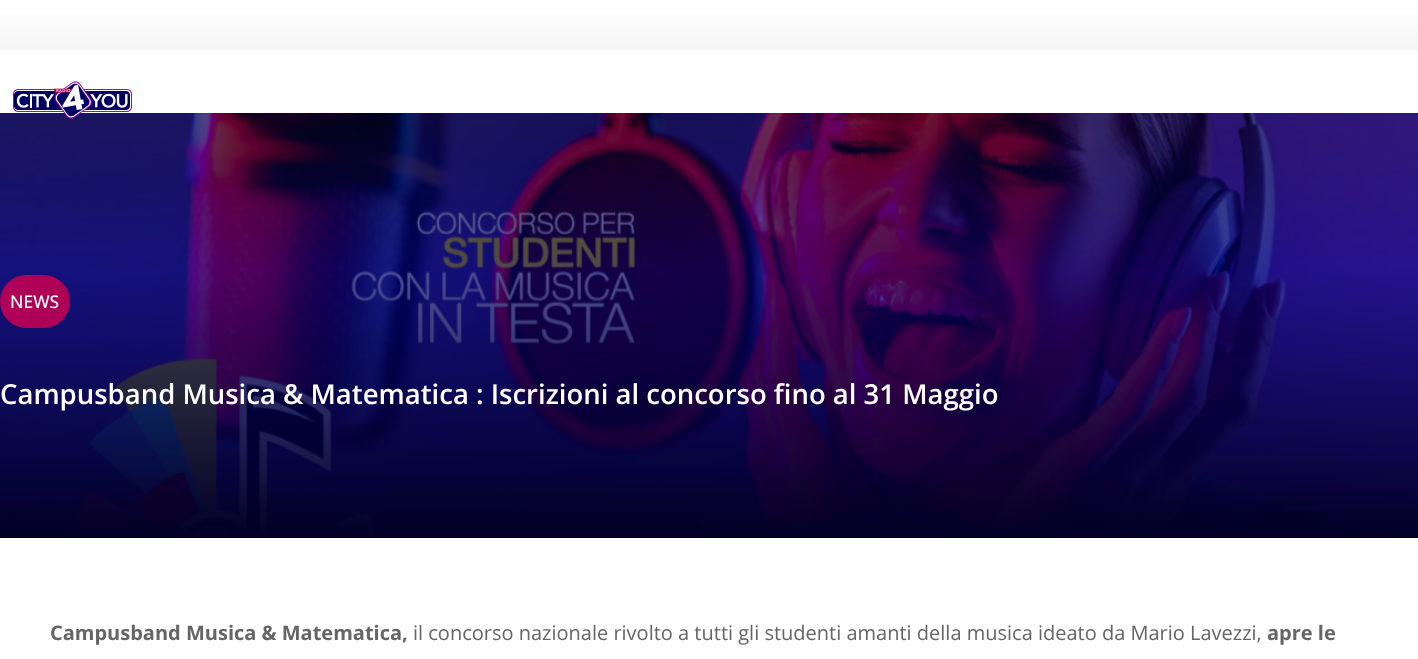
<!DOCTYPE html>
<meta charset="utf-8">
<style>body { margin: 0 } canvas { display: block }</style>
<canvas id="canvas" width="1418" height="659"></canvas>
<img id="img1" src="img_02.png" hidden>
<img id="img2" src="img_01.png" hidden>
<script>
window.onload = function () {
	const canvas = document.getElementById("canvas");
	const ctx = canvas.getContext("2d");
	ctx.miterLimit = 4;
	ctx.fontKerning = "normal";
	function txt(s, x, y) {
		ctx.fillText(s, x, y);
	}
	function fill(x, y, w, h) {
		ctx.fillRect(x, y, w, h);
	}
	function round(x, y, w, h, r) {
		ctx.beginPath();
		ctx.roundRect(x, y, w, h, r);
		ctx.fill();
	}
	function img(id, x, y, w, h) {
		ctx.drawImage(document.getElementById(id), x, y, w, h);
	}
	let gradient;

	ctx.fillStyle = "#FFFFFF";
	fill(0, 0, 1418, 659);
	gradient = ctx.createLinearGradient(709, 50, 709, 0);
	gradient.addColorStop(0, "#F5F5F5");
	gradient.addColorStop(1, "#FFFFFF");
	ctx.fillStyle = gradient;
	fill(0, 13, 1418, 37);
	img("img1", 0, 113, 1418, 425);
	ctx.fillStyle = "rgba(0, 0, 0, 0.08)";
	ctx.beginPath();
	ctx.moveTo(0, 112);
	ctx.lineTo(0, 114);
	ctx.lineTo(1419, 114);
	ctx.lineTo(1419, 51);
	ctx.lineTo(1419, 112);
	ctx.closePath();
	ctx.fill();
	ctx.fillStyle = "#FFFFFF";
	fill(0, 112, 1418, 1);
	img("img2", 13, 81, 119, 38);
	ctx.fillStyle = "#AF0057";
	round(0, 275, 70, 53, 26.5);
	ctx.font = "500 17.5px Open Sans";
	ctx.fillStyle = "#FFFFFF";
	txt("NEWS", 10, 308);
	ctx.font = "600 27.5px Open Sans";
	txt("Campusband Musica & Matematica : Iscrizioni al concorso fino al 31 Maggio", 0, 404);
	ctx.font = "bold 20px Open Sans";
	ctx.fillStyle = "#656565";
	txt("Campusband Musica & Matematica,", 50, 640);
	ctx.font = "20px Open Sans";
	txt("il concorso nazionale rivolto a tutti gli studenti amanti della musica ideato da Mario Lavezzi,", 413, 640);
	ctx.font = "bold 20px Open Sans";
	txt("apre le", 1267, 640);
};
</script>
